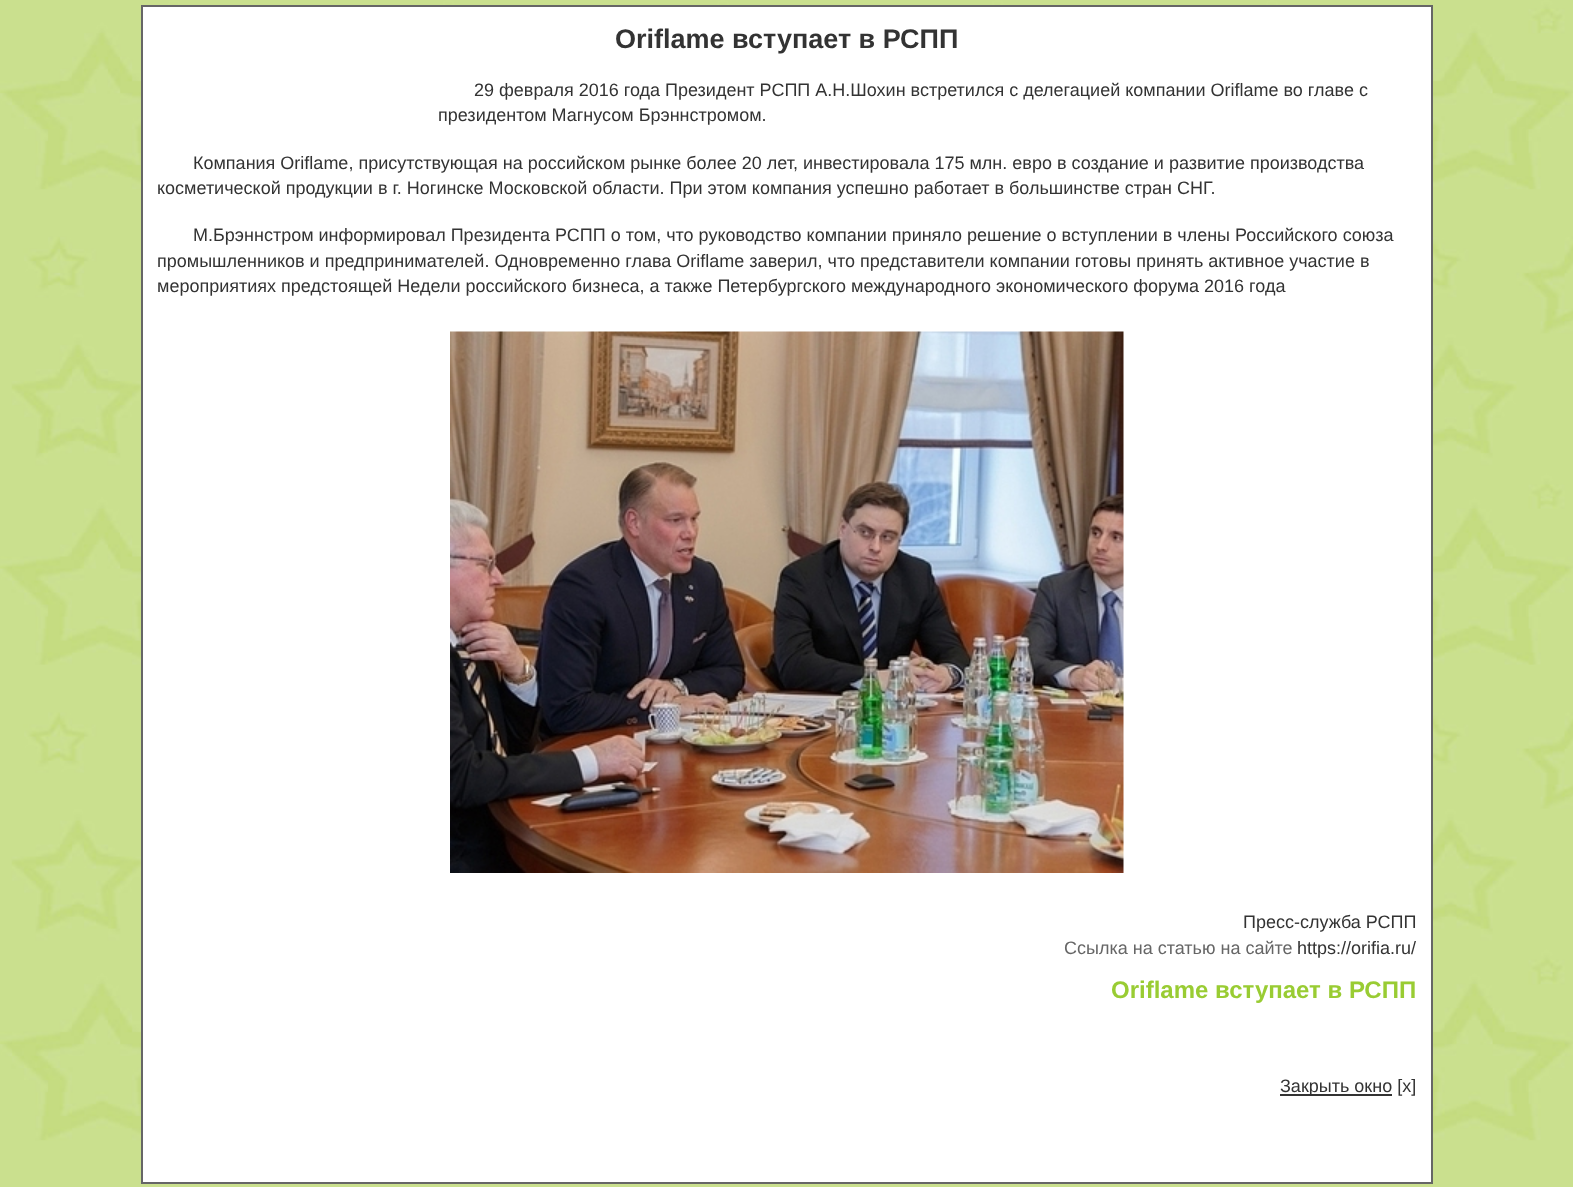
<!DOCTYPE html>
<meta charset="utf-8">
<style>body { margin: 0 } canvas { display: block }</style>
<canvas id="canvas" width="1573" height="1187"></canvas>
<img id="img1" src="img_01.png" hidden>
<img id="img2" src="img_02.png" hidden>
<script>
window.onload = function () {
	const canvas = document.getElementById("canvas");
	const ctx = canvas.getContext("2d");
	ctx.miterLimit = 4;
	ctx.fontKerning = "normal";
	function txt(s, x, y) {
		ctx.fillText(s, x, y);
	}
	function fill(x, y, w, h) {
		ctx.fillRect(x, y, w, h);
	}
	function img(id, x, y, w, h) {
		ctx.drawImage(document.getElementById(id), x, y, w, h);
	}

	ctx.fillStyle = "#FFFFFF";
	fill(0, 0, 1573, 1187);
	img("img1", 0, 0, 1573, 1187);
	ctx.beginPath();
	ctx.rect(142, 6, 1290, 1177);
	ctx.fill();
	ctx.strokeStyle = "#666666";
	ctx.lineWidth = 2;
	ctx.stroke();
	img("img2", 450, 331, 674, 542);
	ctx.fillStyle = "#333333";
	fill(1280, 1094, 112, 2);
	ctx.font = "bold 27px Liberation Sans";
	txt("Oriflame вступает в РСПП", 615, 48);
	ctx.font = "18px Liberation Sans";
	txt("29 февраля 2016 года Президент РСПП А.Н.Шохин встретился с делегацией компании Oriflame во главе с", 474, 96);
	txt("президентом Магнусом Брэннстромом.", 438, 121);
	txt("Компания Oriflame, присутствующая на российском рынке более 20 лет, инвестировала 175 млн. евро в создание и развитие производства", 193, 169);
	txt("косметической продукции в г. Ногинске Московской области. При этом компания успешно работает в большинстве стран СНГ.", 157, 194);
	txt("М.Брэннстром информировал Президента РСПП о том, что руководство компании приняло решение о вступлении в члены Российского союза", 193, 241);
	txt("промышленников и предпринимателей. Одновременно глава Oriflame заверил, что представители компании готовы принять активное участие в", 157, 267);
	txt("мероприятиях предстоящей Недели российского бизнеса, а также Петербургского международного экономического форума 2016 года", 157, 292);
	txt("Пресс-служба РСПП", 1243, 928);
	ctx.fillStyle = "#666666";
	txt("Ссылка на статью на сайте", 1064, 954);
	ctx.fillStyle = "#333333";
	txt("https://orifia.ru/", 1297, 954);
	ctx.font = "bold 24px Liberation Sans";
	ctx.fillStyle = "#99CC33";
	txt("Oriflame вступает в РСПП", 1111, 998);
	ctx.font = "18px Liberation Sans";
	ctx.fillStyle = "#333333";
	txt("Закрыть окно [x]", 1280, 1092);
};
</script>
